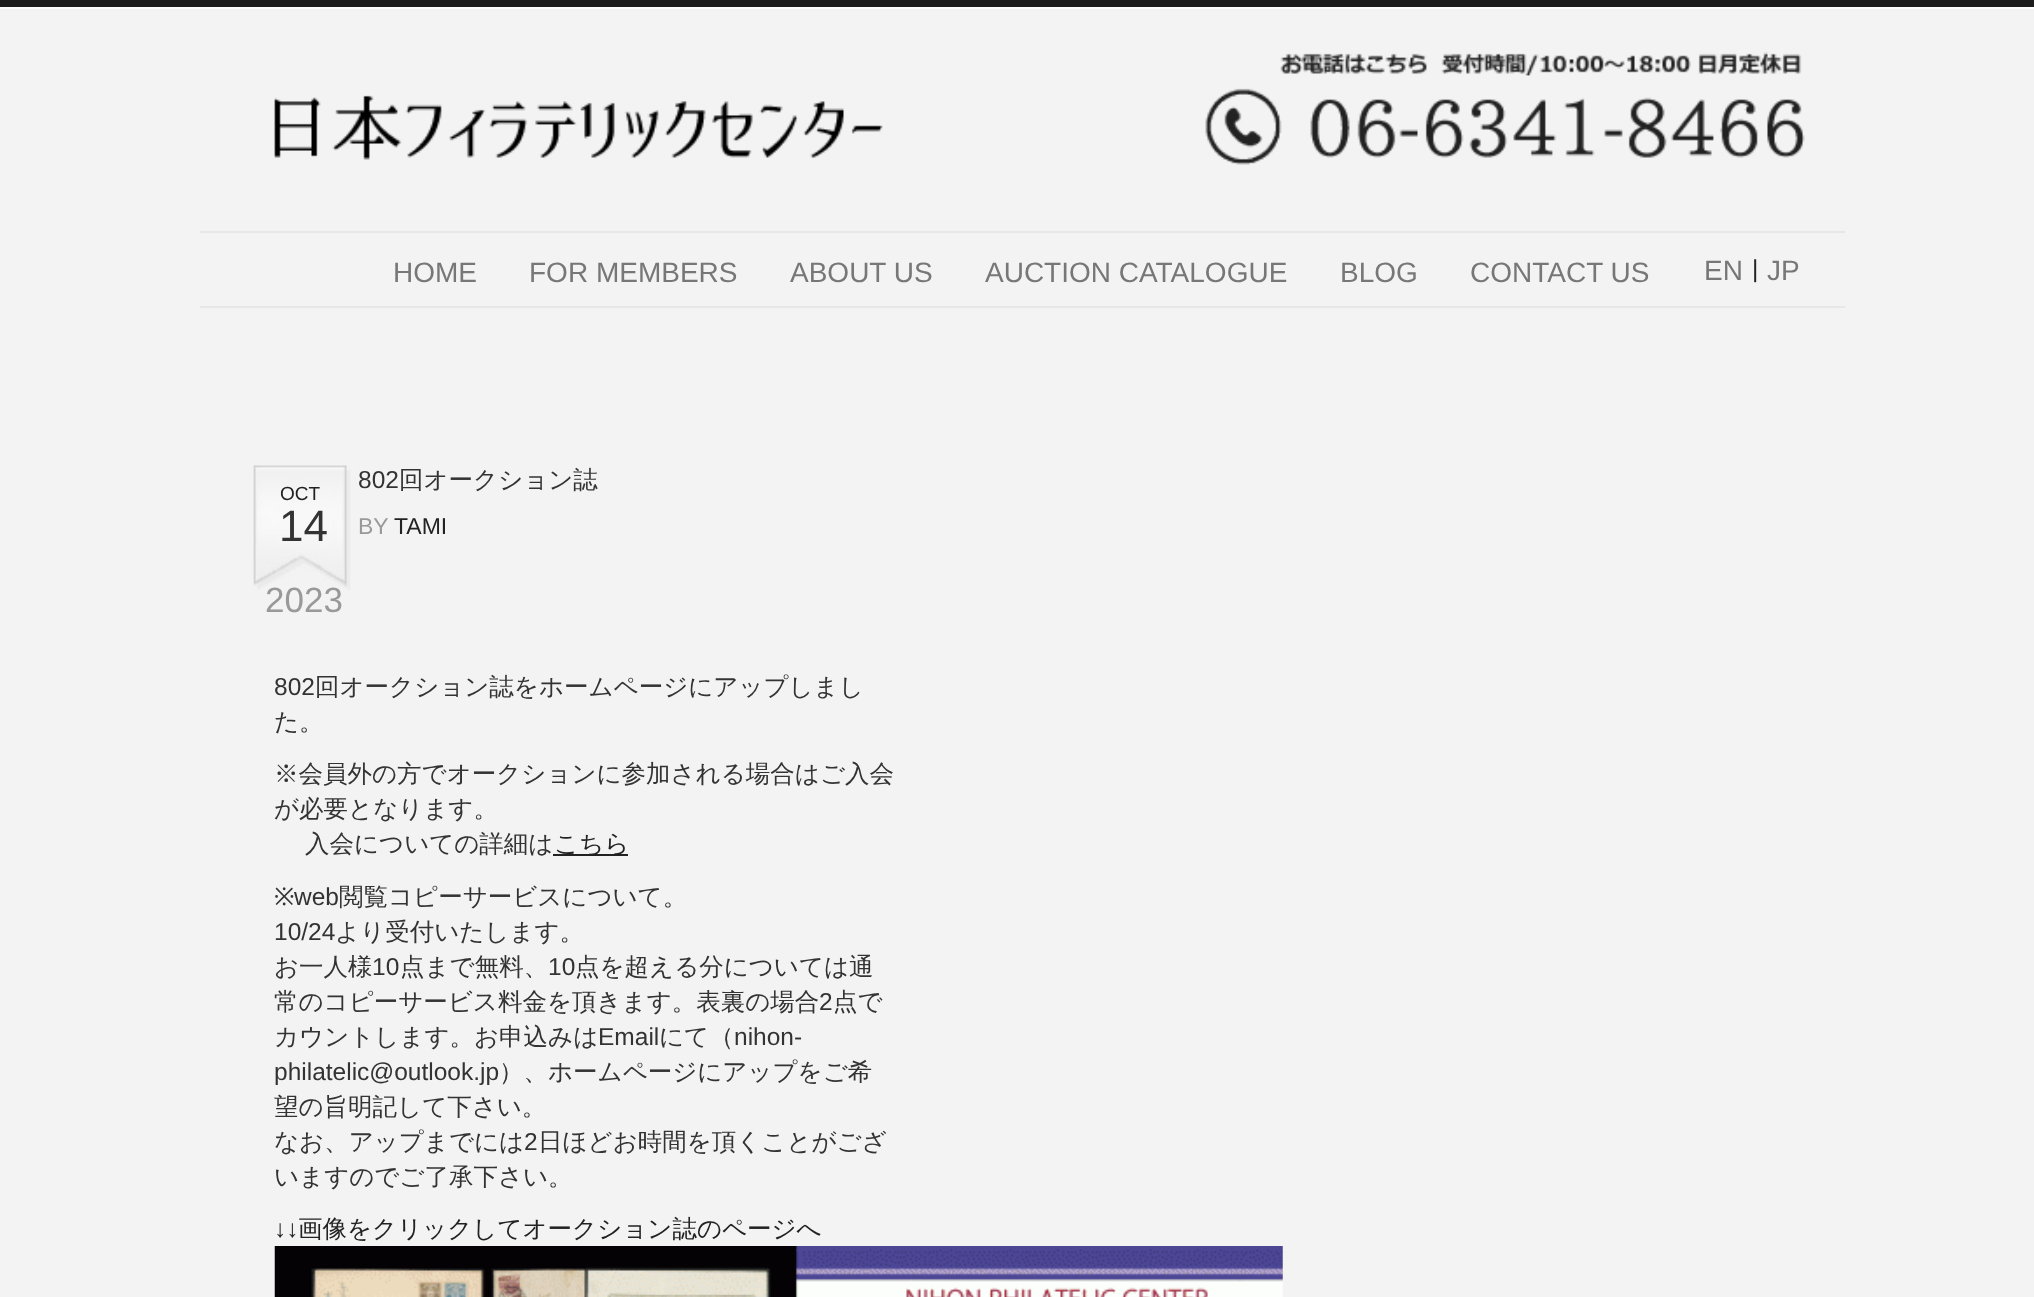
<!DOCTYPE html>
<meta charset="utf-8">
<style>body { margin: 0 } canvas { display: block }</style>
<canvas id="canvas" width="2034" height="1297"></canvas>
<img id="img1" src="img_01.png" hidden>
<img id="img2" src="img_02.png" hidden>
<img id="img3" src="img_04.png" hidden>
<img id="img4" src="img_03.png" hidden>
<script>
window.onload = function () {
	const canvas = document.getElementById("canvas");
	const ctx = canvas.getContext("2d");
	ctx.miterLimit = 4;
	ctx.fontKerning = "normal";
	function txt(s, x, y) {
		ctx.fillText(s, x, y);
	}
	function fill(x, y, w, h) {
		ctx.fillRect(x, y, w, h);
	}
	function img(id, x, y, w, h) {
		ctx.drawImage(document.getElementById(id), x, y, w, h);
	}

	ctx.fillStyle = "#F3F3F3";
	fill(0, 0, 2034, 1297);
	ctx.fillStyle = "#1E1E1E";
	fill(0, 0, 2034, 7);
	ctx.fillStyle = "#FFFFFF";
	fill(0, 7, 2034, 2);
	img("img1", 274, 95, 609, 65);
	img("img2", 1205, 52, 600, 113);
	ctx.fillStyle = "#E7E7E7";
	fill(200, 231, 1645, 2);
	fill(200, 306, 1645, 2);
	ctx.fillStyle = "#222222";
	fill(553, 854, 75, 2);
	img("img3", 274, 1246, 1009, 51);
	ctx.font = "28px Liberation Sans";
	ctx.fillStyle = "#777777";
	txt("HOME", 393, 282);
	txt("FOR MEMBERS", 529, 282);
	txt("ABOUT US", 790, 282);
	txt("AUCTION CATALOGUE", 985, 282);
	txt("BLOG", 1340, 282);
	txt("CONTACT US", 1470, 282);
	txt("EN", 1704, 280);
	ctx.font = "24.5px Liberation Sans";
	ctx.fillStyle = "#222222";
	txt("|", 1752, 277);
	ctx.font = "28px Liberation Sans";
	ctx.fillStyle = "#777777";
	txt("JP", 1767, 280);
	ctx.font = "24.5px Liberation Sans";
	ctx.fillStyle = "#333333";
	txt("802", 358, 488);
	ctx.font = "500 24.5px WenQuanYi Zen Hei";
	txt("回オークション誌", 399, 488);
	img("img4", 253, 465, 106, 125);
	ctx.font = "19px Liberation Sans";
	ctx.fillStyle = "#222222";
	txt("OCT", 280, 500);
	ctx.font = "44px Liberation Sans";
	ctx.fillStyle = "#333333";
	txt("14", 279, 541);
	ctx.font = "35px Liberation Sans";
	ctx.fillStyle = "#999999";
	txt("2023", 265, 612);
	ctx.font = "23px Liberation Sans";
	txt("BY", 358, 534);
	ctx.fillStyle = "#222222";
	txt("TAMI", 394, 534);
	ctx.font = "24.5px Liberation Sans";
	ctx.fillStyle = "#333333";
	txt("802", 274, 695);
	ctx.font = "500 24.5px WenQuanYi Zen Hei";
	txt("回オークション誌をホームページにアップしまし", 315, 695);
	txt("た。", 274, 730);
	txt("※会員外の方でオークションに参加される場合はご入会", 274, 782);
	txt("が必要となります。", 274, 817);
	txt("入会についての詳細は", 305, 852);
	ctx.fillStyle = "#222222";
	txt("こちら", 554, 852);
	ctx.font = "24.5px Noto Sans";
	ctx.fillStyle = "#333333";
	txt("※", 274, 905);
	ctx.font = "24.5px Liberation Sans";
	txt("web", 294, 905);
	ctx.font = "500 24.5px WenQuanYi Zen Hei";
	txt("閲覧コピーサービスについて。", 339, 905);
	ctx.font = "24.5px Liberation Sans";
	txt("10/24", 274, 940);
	ctx.font = "500 24.5px WenQuanYi Zen Hei";
	txt("より受付いたします。", 335, 940);
	txt("お一人様", 274, 975);
	ctx.font = "24.5px Liberation Sans";
	txt("10", 372, 975);
	ctx.font = "500 24.5px WenQuanYi Zen Hei";
	txt("点まで無料、", 400, 975);
	ctx.font = "24.5px Liberation Sans";
	txt("10", 548, 975);
	ctx.font = "500 24.5px WenQuanYi Zen Hei";
	txt("点を超える分については通", 575, 975);
	txt("常のコピーサービス料金を頂きます。表裏の場合", 274, 1010);
	ctx.font = "24.5px Liberation Sans";
	txt("2", 819, 1010);
	ctx.font = "500 24.5px WenQuanYi Zen Hei";
	txt("点で", 833, 1010);
	txt("カウントします。お申込みは", 274, 1045);
	ctx.font = "24.5px Liberation Sans";
	txt("Email", 598, 1045);
	ctx.font = "500 24.5px WenQuanYi Zen Hei";
	txt("にて（", 659, 1045);
	ctx.font = "24.5px Liberation Sans";
	txt("nihon-", 734, 1045);
	txt("philatelic@outlook.jp", 274, 1080);
	ctx.font = "500 24.5px WenQuanYi Zen Hei";
	txt("）、ホームページにアップをご希", 499, 1080);
	txt("望の旨明記して下さい。", 274, 1115);
	txt("なお、アップまでには", 274, 1150);
	ctx.font = "24.5px Liberation Sans";
	txt("2", 524, 1150);
	ctx.font = "500 24.5px WenQuanYi Zen Hei";
	txt("日ほどお時間を頂くことがござ", 538, 1150);
	txt("いますのでご了承下さい。", 274, 1185);
	ctx.font = "24.5px Liberation Sans";
	ctx.fillStyle = "#222222";
	txt("↓↓", 274, 1237);
	ctx.font = "500 24.5px WenQuanYi Zen Hei";
	txt("画像をクリックしてオークション誌のページへ", 298, 1237);
};
</script>
